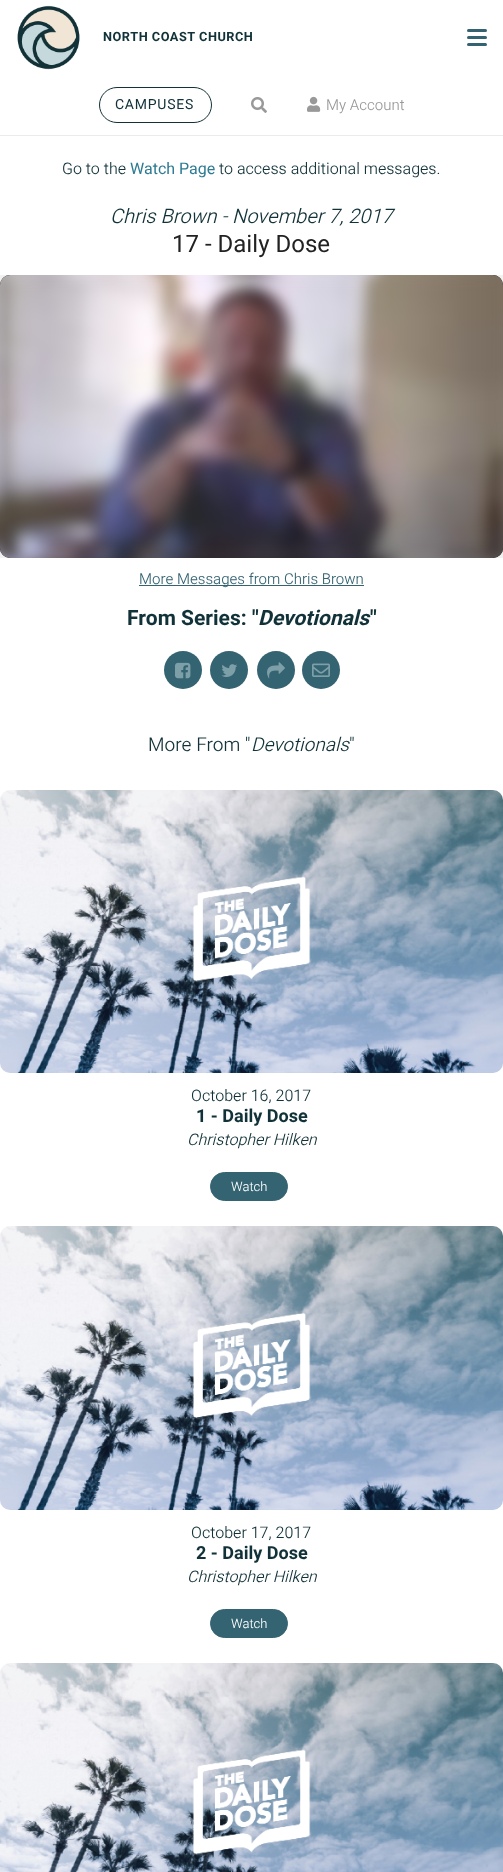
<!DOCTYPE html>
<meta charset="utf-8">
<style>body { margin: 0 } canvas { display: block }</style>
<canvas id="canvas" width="503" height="1872"></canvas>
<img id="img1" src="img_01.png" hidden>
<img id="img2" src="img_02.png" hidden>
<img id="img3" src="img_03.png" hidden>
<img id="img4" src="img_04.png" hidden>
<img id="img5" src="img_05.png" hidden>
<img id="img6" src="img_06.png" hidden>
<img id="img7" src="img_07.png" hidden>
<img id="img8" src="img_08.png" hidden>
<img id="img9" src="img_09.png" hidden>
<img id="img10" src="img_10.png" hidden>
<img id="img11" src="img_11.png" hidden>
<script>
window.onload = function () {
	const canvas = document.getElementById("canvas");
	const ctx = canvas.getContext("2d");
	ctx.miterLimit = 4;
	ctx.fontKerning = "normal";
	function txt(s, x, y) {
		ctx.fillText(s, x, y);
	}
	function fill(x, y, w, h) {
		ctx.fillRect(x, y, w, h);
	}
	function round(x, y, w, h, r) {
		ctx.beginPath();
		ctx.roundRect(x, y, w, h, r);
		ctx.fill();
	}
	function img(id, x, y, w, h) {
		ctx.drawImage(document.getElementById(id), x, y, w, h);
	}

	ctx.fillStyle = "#FFFFFF";
	fill(0, 0, 503, 1872);
	img("img1", 17, 5, 63, 65);
	ctx.fillStyle = "#346271";
	round(467, 36, 20, 3, 1.5);
	round(467, 29, 20, 3, 1.5);
	round(467, 43, 20, 3, 1.5);
	ctx.fillStyle = "#EBEBEB";
	fill(0, 135, 503, 1);
	ctx.beginPath();
	ctx.roundRect(99.5, 87.5, 112, 35, 17.5);
	ctx.strokeStyle = "#133238";
	ctx.stroke();
	img("img2", 251, 97, 16, 16);
	img("img3", 307, 96, 14, 16);
	ctx.fillStyle = "#F1F1F1";
	fill(0, 275, 503, 283);
	ctx.fillStyle = "#000000";
	round(0, 275, 503, 283, 10);
	img("img4", 0, 275, 503, 283);
	ctx.fillStyle = "#346372";
	fill(139, 585, 225, 1);
	ctx.beginPath();
	ctx.arc(183, 670, 19, 0, Math.PI * 2);
	ctx.fill();
	img("img5", 175, 662, 16, 17);
	ctx.beginPath();
	ctx.arc(229, 670, 19, 0, Math.PI * 2);
	ctx.fill();
	img("img6", 221, 664, 16, 13);
	ctx.beginPath();
	ctx.arc(276, 670, 19, 0, Math.PI * 2);
	ctx.fill();
	img("img7", 267, 662, 18, 17);
	ctx.beginPath();
	ctx.arc(321, 670, 19, 0, Math.PI * 2);
	ctx.fill();
	img("img8", 312, 663, 18, 14);
	img("img9", 0, 790, 503, 283);
	ctx.beginPath();
	ctx.roundRect(210.5, 1172.5, 77, 28, 14);
	ctx.fill();
	ctx.strokeStyle = "#346372";
	ctx.stroke();
	img("img10", 0, 1226, 503, 284);
	ctx.beginPath();
	ctx.roundRect(210.5, 1609.5, 77, 28, 14);
	ctx.fill();
	ctx.stroke();
	img("img11", 0, 1663, 503, 209);
	ctx.letterSpacing = "0.5px";
	ctx.font = "bold 12.75px Heebo";
	ctx.fillStyle = "#113238";
	txt("NORTH COAST CHURCH", 103, 41);
	ctx.letterSpacing = "0.75px";
	ctx.font = "14px Heebo";
	txt("CAMPUSES", 115, 109);
	ctx.letterSpacing = "0px";
	ctx.font = "300 15px Heebo";
	ctx.fillStyle = "#999999";
	txt("My Account", 326, 110);
	ctx.font = "300 16px Heebo";
	ctx.fillStyle = "#113238";
	txt("Go to the", 62, 174);
	ctx.font = "16px Heebo";
	ctx.fillStyle = "#2E7B94";
	txt("Watch Page", 130, 174);
	ctx.font = "300 16px Heebo";
	ctx.fillStyle = "#113238";
	txt("to access additional messages.", 219, 174);
	ctx.font = "italic 300 20px Heebo";
	txt("Chris Brown - November 7, 2017", 110, 223);
	ctx.font = "24px Heebo";
	ctx.fillStyle = "#222222";
	txt("17 - Daily Dose", 172, 252);
	ctx.font = "300 15px Heebo";
	ctx.fillStyle = "#346372";
	txt("More Messages from Chris Brown", 139, 584);
	ctx.font = "bold 21px Heebo";
	ctx.fillStyle = "#113238";
	txt("From Series: \"", 127, 625);
	ctx.font = "italic bold 21px Heebo";
	txt("Devotionals", 258, 625);
	ctx.font = "bold 21px Heebo";
	txt("\"", 370, 625);
	ctx.font = "300 19px Heebo";
	txt("More From \"", 148, 751);
	ctx.font = "italic 300 19px Heebo";
	txt("Devotionals", 251, 751);
	ctx.font = "300 19px Heebo";
	txt("\"", 349, 751);
	ctx.font = "300 16px Heebo";
	txt("October 16, 2017", 191, 1101);
	ctx.font = "bold 18px Heebo";
	txt("1 - Daily Dose", 196, 1122);
	ctx.font = "italic 300 16px Heebo";
	txt("Christopher Hilken", 187, 1145);
	ctx.font = "300 13px Heebo";
	ctx.fillStyle = "#FFFFFF";
	txt("Watch", 231, 1191);
	ctx.font = "300 16px Heebo";
	ctx.fillStyle = "#113238";
	txt("October 17, 2017", 191, 1538);
	ctx.font = "bold 18px Heebo";
	txt("2 - Daily Dose", 196, 1559);
	ctx.font = "italic 300 16px Heebo";
	txt("Christopher Hilken", 187, 1582);
	ctx.font = "300 13px Heebo";
	ctx.fillStyle = "#FFFFFF";
	txt("Watch", 231, 1628);
};
</script>
